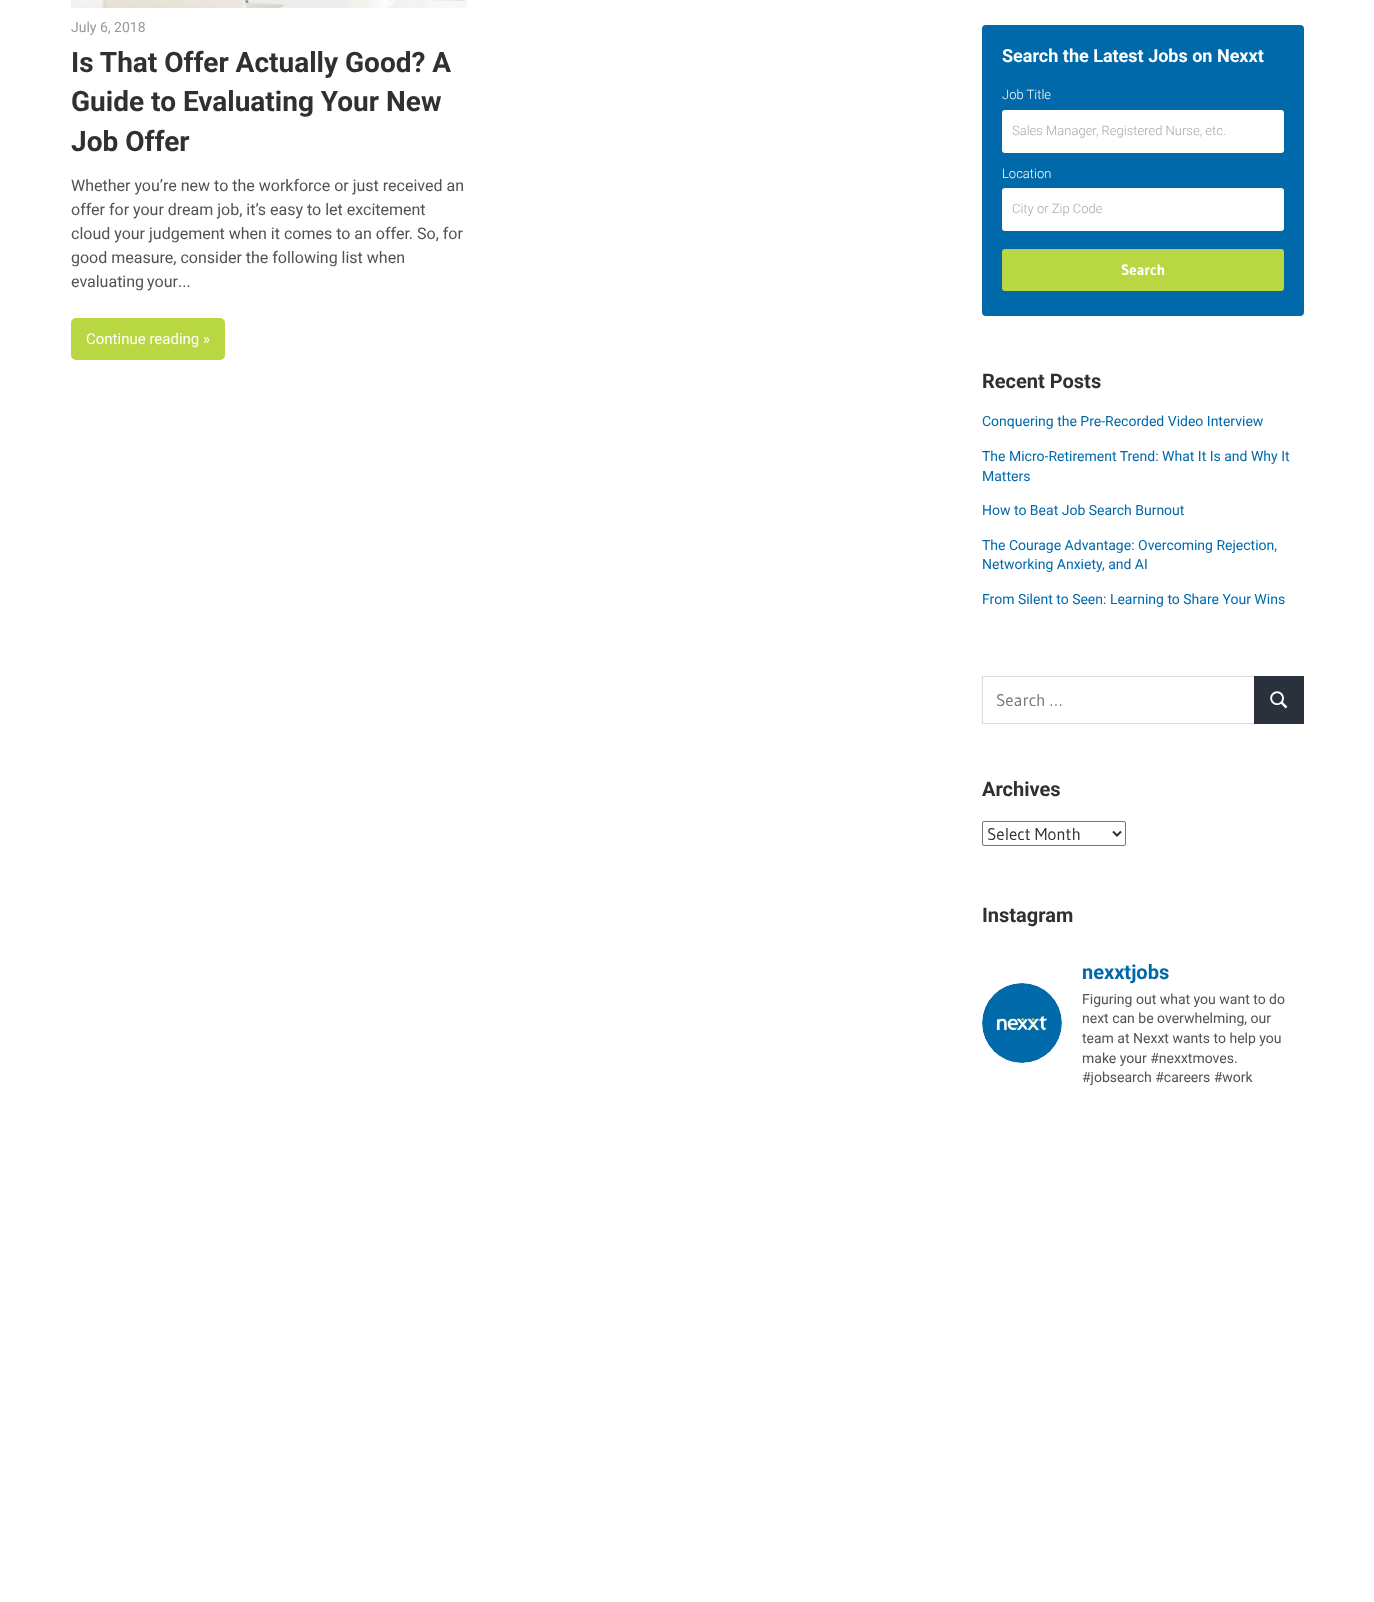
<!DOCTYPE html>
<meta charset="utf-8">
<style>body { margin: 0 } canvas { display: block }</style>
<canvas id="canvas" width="1374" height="1602"></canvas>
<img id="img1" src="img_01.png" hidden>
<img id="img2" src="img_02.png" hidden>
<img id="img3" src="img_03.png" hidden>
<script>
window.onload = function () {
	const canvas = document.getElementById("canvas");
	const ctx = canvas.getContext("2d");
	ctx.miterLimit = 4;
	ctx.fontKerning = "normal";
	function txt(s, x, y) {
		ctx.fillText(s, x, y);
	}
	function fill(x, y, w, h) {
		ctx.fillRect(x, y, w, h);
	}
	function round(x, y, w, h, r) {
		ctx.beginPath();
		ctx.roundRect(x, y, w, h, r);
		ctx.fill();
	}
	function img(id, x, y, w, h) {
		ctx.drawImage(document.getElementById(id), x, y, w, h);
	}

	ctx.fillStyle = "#FFFFFF";
	fill(0, 0, 1374, 1602);
	img("img1", 71, 0, 396, 8);
	ctx.fillStyle = "#B8D742";
	round(71, 318, 154, 42, 5);
	ctx.fillStyle = "#0069AA";
	round(982, 25, 322, 291, 4);
	ctx.fillStyle = "#FFFFFF";
	round(1002, 110, 282, 43, 3);
	round(1002, 188, 282, 43, 3);
	ctx.fillStyle = "#B8D742";
	round(1002, 249, 282, 42, 3);
	ctx.strokeStyle = "#DDDDDD";
	ctx.strokeRect(982.5, 676.5, 272, 47);
	ctx.fillStyle = "#2A313C";
	fill(1254, 676, 50, 48);
	img("img2", 1270, 691, 18, 18);
	ctx.beginPath();
	ctx.roundRect(982.5, 821.5, 143, 24, 1.5);
	ctx.strokeStyle = "#767676";
	ctx.stroke();
	ctx.beginPath();
	ctx.moveTo(1113, 831.5);
	ctx.lineTo(1117, 835.5);
	ctx.lineTo(1121, 831.5);
	ctx.strokeStyle = "#303030";
	ctx.lineWidth = 2;
	ctx.stroke();
	img("img3", 982, 983, 80, 80);
	ctx.font = "14px Roboto";
	ctx.fillStyle = "#999999";
	txt("July 6, 2018", 71, 32);
	ctx.font = "bold 28px Roboto";
	ctx.fillStyle = "#303030";
	txt("Is That Offer Actually Good? A", 71, 72);
	txt("Guide to Evaluating Your New", 71, 111);
	txt("Job Offer", 71, 151);
	ctx.font = "16px Roboto";
	ctx.fillStyle = "#525253";
	txt("Whether you’re new to the workforce or just received an", 71, 191);
	txt("offer for your dream job, it’s easy to let excitement", 71, 215);
	txt("cloud your judgement when it comes to an offer. So, for", 71, 239);
	txt("good measure, consider the following list when", 71, 263);
	ctx.wordSpacing = "-1px";
	txt("evaluating your", 71, 287);
	ctx.wordSpacing = "0px";
	txt("...", 178, 287);
	ctx.font = "15px Roboto";
	ctx.fillStyle = "#FFFFFF";
	txt("Continue reading »", 86, 344);
	ctx.font = "bold 18px Roboto";
	txt("Search the Latest Jobs on Nexxt", 1002, 62);
	ctx.font = "300 13px Roboto";
	txt("Job Title", 1002, 99);
	ctx.fillStyle = "#A8A8A8";
	txt("Sales Manager, Registered Nurse, etc.", 1012, 135);
	ctx.fillStyle = "#FFFFFF";
	txt("Location", 1002, 178);
	ctx.fillStyle = "#A8A8A8";
	txt("City or Zip Code", 1012, 213);
	ctx.font = "bold 15px Gudea";
	ctx.fillStyle = "#FFFFFF";
	txt("Search", 1121, 275);
	ctx.font = "bold 20px Roboto";
	ctx.fillStyle = "#303030";
	txt("Recent Posts", 982, 388);
	ctx.font = "14px Roboto";
	ctx.fillStyle = "#0069AA";
	txt("Conquering the Pre-Recorded Video Interview", 982, 426);
	txt("The Micro-Retirement Trend: What It Is and Why It", 982, 461);
	txt("Matters", 982, 481);
	txt("How to Beat Job Search Burnout", 982, 515);
	txt("The Courage Advantage: Overcoming Rejection,", 982, 550);
	txt("Networking Anxiety, and AI", 982, 569);
	txt("From Silent to Seen: Learning to Share Your Wins", 982, 604);
	ctx.font = "17px Gudea";
	ctx.fillStyle = "#757575";
	txt("Search …", 996, 706);
	ctx.font = "bold 20px Roboto";
	ctx.fillStyle = "#303030";
	txt("Archives", 982, 796);
	ctx.font = "17px Gudea";
	txt("Select Month", 987, 840);
	ctx.font = "bold 20px Roboto";
	txt("Instagram", 982, 922);
	ctx.fillStyle = "#0069AA";
	txt("nexxtjobs", 1082, 979);
	ctx.font = "14px Roboto";
	ctx.fillStyle = "#525253";
	txt("Figuring out what you want to do", 1082, 1004);
	txt("next can be overwhelming, our", 1082, 1023);
	txt("team at Nexxt wants to help you", 1082, 1043);
	txt("make your #nexxtmoves.", 1082, 1063);
	txt("#jobsearch #careers #work", 1082, 1082);
};
</script>
